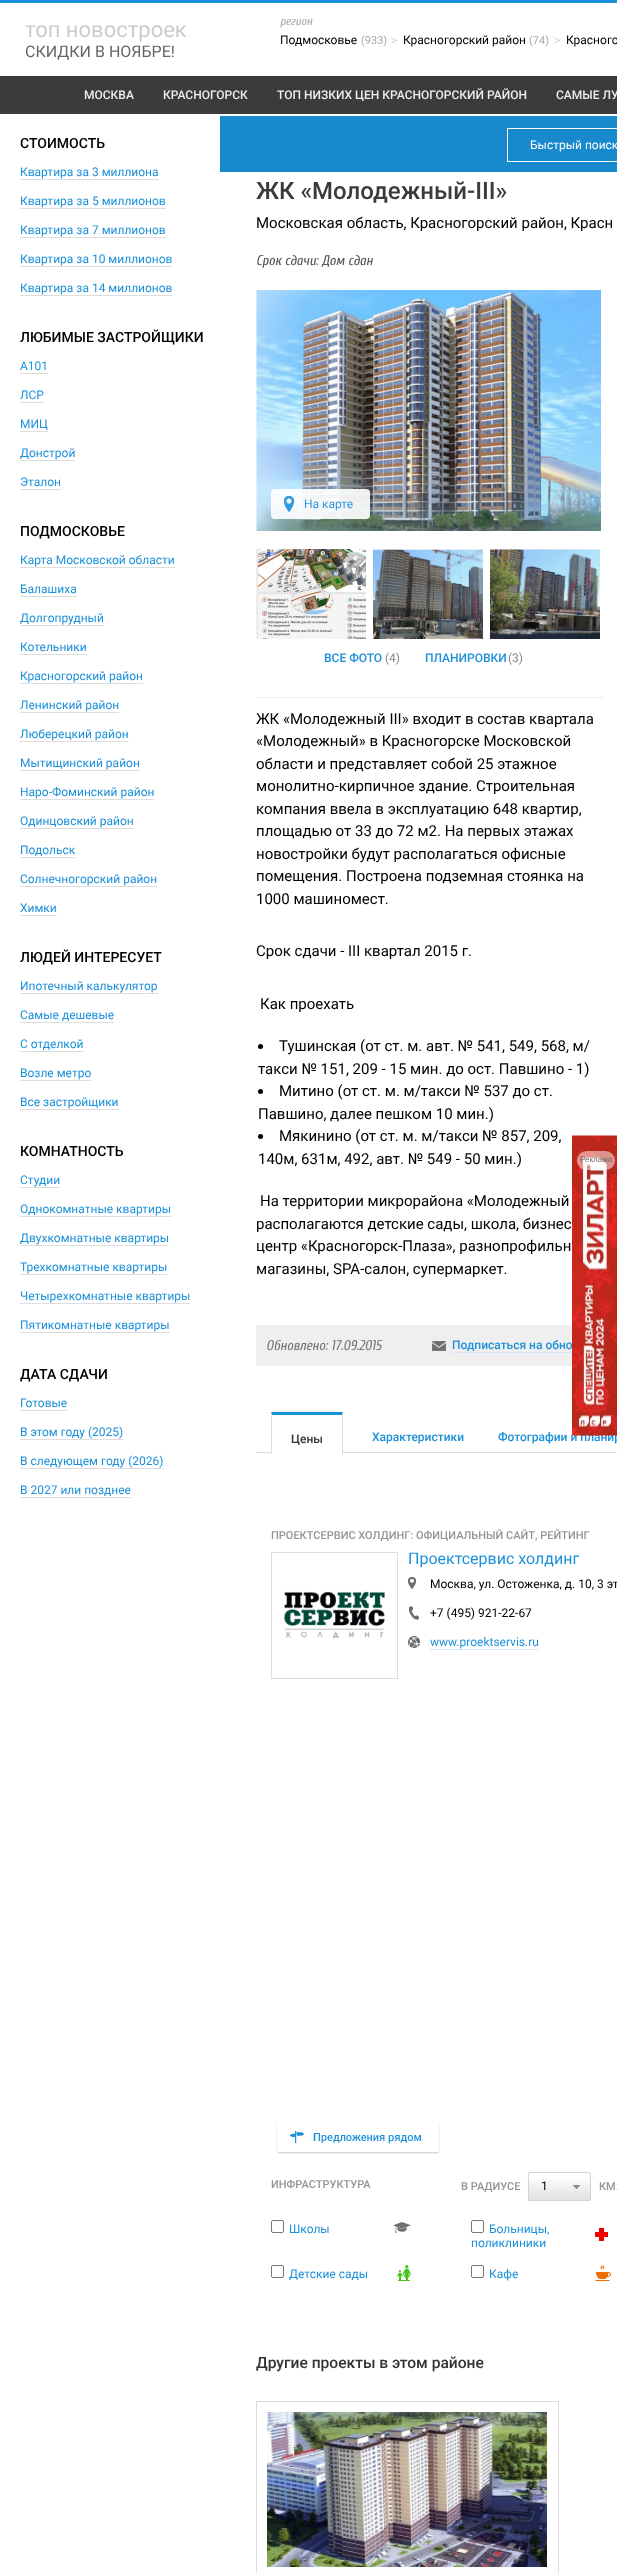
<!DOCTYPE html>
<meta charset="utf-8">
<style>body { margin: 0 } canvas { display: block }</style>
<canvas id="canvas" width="617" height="2573"></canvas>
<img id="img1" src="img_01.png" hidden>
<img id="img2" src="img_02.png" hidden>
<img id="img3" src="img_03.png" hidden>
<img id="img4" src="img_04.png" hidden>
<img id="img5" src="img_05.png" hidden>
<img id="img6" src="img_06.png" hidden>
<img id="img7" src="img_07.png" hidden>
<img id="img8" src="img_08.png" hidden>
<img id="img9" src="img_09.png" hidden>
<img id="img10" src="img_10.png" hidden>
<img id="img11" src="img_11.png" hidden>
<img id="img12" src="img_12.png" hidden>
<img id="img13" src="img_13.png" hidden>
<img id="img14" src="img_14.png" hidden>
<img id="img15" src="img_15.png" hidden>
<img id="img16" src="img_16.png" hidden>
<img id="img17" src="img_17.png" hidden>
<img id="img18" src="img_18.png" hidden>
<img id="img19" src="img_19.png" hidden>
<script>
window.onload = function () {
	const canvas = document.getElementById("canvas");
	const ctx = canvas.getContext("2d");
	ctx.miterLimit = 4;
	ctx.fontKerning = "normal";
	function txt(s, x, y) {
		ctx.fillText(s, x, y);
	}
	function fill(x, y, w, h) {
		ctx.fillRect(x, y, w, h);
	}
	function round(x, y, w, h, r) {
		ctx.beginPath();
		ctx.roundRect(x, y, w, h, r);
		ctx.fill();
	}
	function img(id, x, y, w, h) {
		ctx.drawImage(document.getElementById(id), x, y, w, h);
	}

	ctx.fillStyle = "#FFFFFF";
	fill(0, 0, 617, 2573);
	ctx.fillStyle = "#1C90D9";
	fill(0, 0, 617, 3);
	ctx.fillStyle = "#3B3B3B";
	fill(0, 76, 617, 38);
	ctx.fillStyle = "#DDDDDD";
	fill(20, 179, 139, 1);
	fill(20, 208, 146, 1);
	fill(20, 237, 146, 1);
	fill(20, 266, 152, 1);
	fill(20, 295, 152, 1);
	fill(20, 373, 28, 1);
	fill(20, 402, 24, 1);
	fill(20, 431, 28, 1);
	fill(20, 460, 55, 1);
	fill(20, 489, 41, 1);
	fill(20, 567, 155, 1);
	fill(20, 596, 57, 1);
	fill(20, 625, 84, 1);
	fill(20, 654, 67, 1);
	fill(20, 683, 123, 1);
	fill(20, 712, 99, 1);
	fill(20, 741, 109, 1);
	fill(20, 770, 120, 1);
	fill(20, 799, 134, 1);
	fill(20, 828, 114, 1);
	fill(20, 857, 55, 1);
	fill(20, 886, 137, 1);
	fill(20, 915, 37, 1);
	fill(20, 993, 138, 1);
	fill(20, 1022, 94, 1);
	fill(20, 1051, 63, 1);
	fill(20, 1080, 71, 1);
	fill(20, 1109, 99, 1);
	fill(20, 1187, 40, 1);
	fill(20, 1216, 151, 1);
	fill(20, 1245, 149, 1);
	fill(20, 1274, 147, 1);
	fill(20, 1303, 170, 1);
	fill(20, 1332, 150, 1);
	fill(20, 1410, 47, 1);
	fill(20, 1439, 103, 1);
	fill(20, 1468, 144, 1);
	fill(20, 1497, 111, 1);
	ctx.fillStyle = "#1989CE";
	fill(220, 116, 397, 56);
	ctx.strokeStyle = "#FFFFFF";
	ctx.strokeRect(507.5, 128.5, 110, 33);
	img("img1", 256, 290, 345, 241);
	ctx.fillStyle = "rgba(255, 255, 255, 0.9)";
	round(271, 489, 99, 30, 4);
	img("img2", 284, 496, 10, 16);
	img("img3", 256, 549, 110, 90);
	img("img4", 373, 549, 110, 90);
	img("img5", 490, 549, 110, 90);
	ctx.fillStyle = "#EEEEEE";
	fill(256, 697, 347, 1);
	ctx.fillStyle = "#000000";
	ctx.beginPath();
	ctx.arc(260.5, 1046.5, 2.5, 0, Math.PI * 2);
	ctx.fill();
	ctx.beginPath();
	ctx.arc(260.5, 1091.5, 2.5, 0, Math.PI * 2);
	ctx.fill();
	ctx.beginPath();
	ctx.arc(260.5, 1136.5, 2.5, 0, Math.PI * 2);
	ctx.fill();
	ctx.fillStyle = "#EFEFEF";
	fill(256, 1325, 316, 41);
	img("img6", 432, 1341, 14, 10);
	ctx.fillStyle = "#D6E8F7";
	fill(452, 1352, 120, 1);
	ctx.fillStyle = "#DDDDDD";
	fill(256, 1452, 361, 1);
	ctx.fillStyle = "#FFFFFF";
	fill(271, 1452, 72, 1);
	ctx.fillStyle = "#1C90D9";
	ctx.beginPath();
	ctx.moveTo(271, 1412);
	ctx.lineTo(343, 1412);
	ctx.lineTo(342, 1415);
	ctx.lineTo(272, 1415);
	ctx.closePath();
	ctx.fill();
	ctx.fillStyle = "#DDDDDD";
	ctx.beginPath();
	ctx.moveTo(343, 1412);
	ctx.lineTo(343, 1454);
	ctx.lineTo(342, 1454);
	ctx.lineTo(342, 1415);
	ctx.closePath();
	ctx.fill();
	ctx.beginPath();
	ctx.moveTo(271, 1454);
	ctx.lineTo(271, 1412);
	ctx.lineTo(272, 1415);
	ctx.lineTo(272, 1454);
	ctx.closePath();
	ctx.fill();
	ctx.strokeStyle = "#DDDDDD";
	ctx.strokeRect(271.5, 1552.5, 126, 126);
	img("img7", 284, 1591, 101, 48);
	img("img8", 408, 1577, 8, 12);
	img("img9", 408, 1606, 11, 14);
	img("img10", 408, 1636, 12, 12);
	ctx.fillStyle = "#D6E8F7";
	fill(430, 1649, 109, 1);
	img("img11", 276, 2124, 164, 30);
	img("img12", 528, 2179, 63, 22);
	ctx.beginPath();
	ctx.roundRect(528.5, 2172.5, 62, 28, 1.5);
	ctx.strokeStyle = "#D3D3D3";
	ctx.stroke();
	img("img13", 573, 2185, 7, 4);
	img("img14", 393, 2222, 18, 11);
	ctx.beginPath();
	ctx.roundRect(271.5, 2220.5, 12, 12, 1.5);
	ctx.strokeStyle = "#767676";
	ctx.stroke();
	img("img15", 595, 2228, 13, 13);
	ctx.beginPath();
	ctx.roundRect(471.5, 2220.5, 12, 12, 1.5);
	ctx.stroke();
	img("img16", 397, 2265, 14, 16);
	ctx.beginPath();
	ctx.roundRect(271.5, 2265.5, 12, 12, 1.5);
	ctx.stroke();
	img("img17", 595, 2265, 16, 16);
	ctx.beginPath();
	ctx.roundRect(471.5, 2265.5, 12, 12, 1.5);
	ctx.stroke();
	ctx.strokeStyle = "#DDDDDD";
	ctx.strokeRect(256.5, 2401.5, 302, 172);
	img("img18", 267, 2412, 280, 155);
	ctx.font = "22px Roboto";
	ctx.fillStyle = "#CCCCCC";
	txt("топ новостроек", 25, 37);
	ctx.font = "16px Roboto";
	ctx.fillStyle = "#666666";
	txt("СКИДКИ В НОЯБРЕ!", 25, 57);
	ctx.font = "italic 12px Cuprum";
	ctx.fillStyle = "#A7A7A7";
	txt("регион", 280, 25);
	ctx.font = "12px Roboto";
	ctx.fillStyle = "#000000";
	txt("Подмосковье", 280, 44);
	ctx.font = "11px Roboto";
	ctx.fillStyle = "#A7A7A7";
	txt("(933)", 361, 44);
	ctx.font = "11px Liberation Serif";
	txt(">", 391, 44);
	ctx.font = "12px Roboto";
	ctx.fillStyle = "#000000";
	txt("Красногорский район", 403, 44);
	ctx.font = "11px Roboto";
	ctx.fillStyle = "#A7A7A7";
	txt("(74)", 529, 44);
	ctx.font = "11px Liberation Serif";
	txt(">", 554, 44);
	ctx.font = "12px Roboto";
	ctx.fillStyle = "#000000";
	txt("Красного", 566, 44);
	ctx.font = "500 12px Roboto";
	ctx.fillStyle = "#EEEEEE";
	txt("МОСКВА", 84, 99);
	txt("КРАСНОГОРСК", 163, 99);
	txt("ТОП НИЗКИХ ЦЕН КРАСНОГОРСКИЙ РАЙОН", 277, 99);
	txt("САМЫЕ ЛУ", 556, 99);
	ctx.font = "500 14px Roboto";
	ctx.fillStyle = "#000000";
	txt("СТОИМОСТЬ", 20, 148);
	ctx.font = "12px Roboto";
	ctx.fillStyle = "#1C90D9";
	txt("Квартира за 3 миллиона", 20, 176);
	txt("Квартира за 5 миллионов", 20, 205);
	txt("Квартира за 7 миллионов", 20, 234);
	txt("Квартира за 10 миллионов", 20, 263);
	txt("Квартира за 14 миллионов", 20, 292);
	ctx.font = "500 14px Roboto";
	ctx.fillStyle = "#000000";
	txt("ЛЮБИМЫЕ ЗАСТРОЙЩИКИ", 20, 342);
	ctx.font = "12px Roboto";
	ctx.fillStyle = "#1C90D9";
	txt("А101", 20, 370);
	txt("ЛСР", 20, 399);
	txt("МИЦ", 20, 428);
	txt("Донстрой", 20, 457);
	txt("Эталон", 20, 486);
	ctx.font = "500 14px Roboto";
	ctx.fillStyle = "#000000";
	txt("ПОДМОСКОВЬЕ", 20, 536);
	ctx.font = "12px Roboto";
	ctx.fillStyle = "#1C90D9";
	txt("Карта Московской области", 20, 564);
	txt("Балашиха", 20, 593);
	txt("Долгопрудный", 20, 622);
	txt("Котельники", 20, 651);
	txt("Красногорский район", 20, 680);
	txt("Ленинский район", 20, 709);
	txt("Люберецкий район", 20, 738);
	txt("Мытищинский район", 20, 767);
	txt("Наро-Фоминский район", 20, 796);
	txt("Одинцовский район", 20, 825);
	txt("Подольск", 20, 854);
	txt("Солнечногорский район", 20, 883);
	txt("Химки", 20, 912);
	ctx.font = "500 14px Roboto";
	ctx.fillStyle = "#000000";
	txt("ЛЮДЕЙ ИНТЕРЕСУЕТ", 20, 962);
	ctx.font = "12px Roboto";
	ctx.fillStyle = "#1C90D9";
	txt("Ипотечный калькулятор", 20, 990);
	txt("Самые дешевые", 20, 1019);
	txt("С отделкой", 20, 1048);
	txt("Возле метро", 20, 1077);
	txt("Все застройщики", 20, 1106);
	ctx.font = "500 14px Roboto";
	ctx.fillStyle = "#000000";
	txt("КОМНАТНОСТЬ", 20, 1156);
	ctx.font = "12px Roboto";
	ctx.fillStyle = "#1C90D9";
	txt("Студии", 20, 1184);
	txt("Однокомнатные квартиры", 20, 1213);
	txt("Двухкомнатные квартиры", 20, 1242);
	txt("Трехкомнатные квартиры", 20, 1271);
	txt("Четырехкомнатные квартиры", 20, 1300);
	txt("Пятикомнатные квартиры", 20, 1329);
	ctx.font = "500 14px Roboto";
	ctx.fillStyle = "#000000";
	txt("ДАТА СДАЧИ", 20, 1379);
	ctx.font = "12px Roboto";
	ctx.fillStyle = "#1C90D9";
	txt("Готовые", 20, 1407);
	txt("В этом году (2025)", 20, 1436);
	txt("В следующем году (2026)", 20, 1465);
	txt("В 2027 или позднее", 20, 1494);
	ctx.fillStyle = "#FFFFFF";
	txt("Быстрый поиск", 530, 149);
	ctx.font = "500 24px Roboto";
	ctx.fillStyle = "#3B3B3B";
	txt("ЖК «Молодежный-III»", 256, 199);
	ctx.font = "15px Roboto";
	ctx.fillStyle = "#000000";
	txt("Московская область, Красногорский район, Красн", 256, 228);
	ctx.font = "italic 14px Cuprum";
	ctx.fillStyle = "#555555";
	txt("Срок сдачи: Дом сдан", 256, 265);
	ctx.font = "12px Roboto";
	ctx.fillStyle = "#329ADC";
	txt("На карте", 304, 508);
	ctx.font = "500 12px Roboto";
	ctx.fillStyle = "#1C90D9";
	txt("ВСЕ ФОТО", 324, 662);
	ctx.font = "12px Roboto";
	ctx.fillStyle = "#888888";
	txt("(4)", 385, 662);
	ctx.font = "500 12px Roboto";
	ctx.fillStyle = "#1C90D9";
	txt("ПЛАНИРОВКИ", 425, 662);
	ctx.font = "12px Roboto";
	ctx.fillStyle = "#888888";
	txt("(3)", 508, 662);
	ctx.font = "15px Roboto";
	ctx.fillStyle = "#000000";
	txt("ЖК «Молодежный III» входит в состав квартала", 256, 724);
	txt("«Молодежный» в Красногорске Московской", 256, 746);
	txt("области и представляет собой 25 этажное", 256, 769);
	txt("монолитно-кирпичное здание. Строительная", 256, 791);
	txt("компания ввела в эксплуатацию 648 квартир,", 256, 814);
	txt("площадью от 33 до 72 м2. На первых этажах", 256, 836);
	txt("новостройки будут располагаться офисные", 256, 859);
	txt("помещения. Построена подземная стоянка на", 256, 881);
	txt("1000 машиномест.", 256, 904);
	txt("Срок сдачи - III квартал 2015 г.", 256, 956);
	txt("Как проехать", 260, 1009);
	txt("Тушинская (от ст. м. авт. № 541, 549, 568, м/", 279, 1051);
	txt("такси № 151, 209 - 15 мин. до ост. Павшино - 1)", 258, 1074);
	txt("Митино (от ст. м. м/такси № 537 до ст.", 279, 1096);
	txt("Павшино, далее пешком 10 мин.)", 258, 1119);
	txt("Мякинино (от ст. м. м/такси № 857, 209,", 279, 1141);
	txt("140м, 631м, 492, авт. № 549 - 50 мин.)", 258, 1164);
	txt("На территории микрорайона «Молодежный", 260, 1206);
	txt("располагаются детские сады, школа, бизнес", 256, 1229);
	txt("центр «Красногорск-Плаза», разнопрофильн", 256, 1251);
	txt("магазины, SPA-салон, супермаркет.", 256, 1274);
	ctx.font = "italic 14px Cuprum";
	ctx.fillStyle = "#777777";
	txt("Обновлено: 17.09.2015", 266, 1350);
	ctx.font = "500 12px Roboto";
	ctx.fillStyle = "#1C90D9";
	txt("Подписаться на обно", 452, 1349);
	ctx.fillStyle = "#333333";
	txt("Цены", 291, 1443);
	ctx.fillStyle = "#1C90D9";
	txt("Характеристики", 372, 1441);
	txt("Фотографии и планир", 498, 1441);
	ctx.font = "500 11px Roboto";
	ctx.fillStyle = "#949494";
	txt("ПРОЕКТСЕРВИС ХОЛДИНГ: ОФИЦИАЛЬНЫЙ САЙТ, РЕЙТИНГ", 271, 1539);
	ctx.font = "16px Roboto";
	ctx.fillStyle = "#1C90D9";
	txt("Проектсервис холдинг", 408, 1564);
	ctx.font = "12px Roboto";
	ctx.fillStyle = "#000000";
	txt("Москва, ул. Остоженка, д. 10, 3 эт", 430, 1588);
	txt("+7 (495) 921-22-67", 430, 1617);
	ctx.fillStyle = "#1C90D9";
	txt("www.proektservis.ru", 430, 1646);
	ctx.font = "500 11px Roboto";
	ctx.fillStyle = "#949494";
	txt("ИНФРАСТРУКТУРА", 271, 2188);
	txt("В РАДИУСЕ", 461, 2190);
	ctx.font = "12px Roboto";
	ctx.fillStyle = "#000000";
	txt("1", 541, 2190);
	ctx.font = "500 11px Roboto";
	ctx.fillStyle = "#949494";
	txt("КМ.", 599, 2190);
	ctx.font = "12px Roboto";
	ctx.fillStyle = "#1C90D9";
	txt("Школы", 289, 2233);
	txt("Больницы,", 489, 2233);
	txt("поликлиники", 471, 2247);
	txt("Детские сады", 289, 2278);
	txt("Кафе", 489, 2278);
	ctx.font = "500 15.6px Roboto";
	ctx.fillStyle = "#333333";
	txt("Другие проекты в этом районе", 256, 2368);
	img("img19", 572, 1135, 45, 301);
	ctx.fillStyle = "rgba(255, 255, 255, 0.5)";
	round(577, 1151, 38, 19, 9.5);
	ctx.font = "8px Liberation Sans";
	ctx.fillStyle = "#776564";
	txt("Реклама", 580, 1162);
};
</script>
